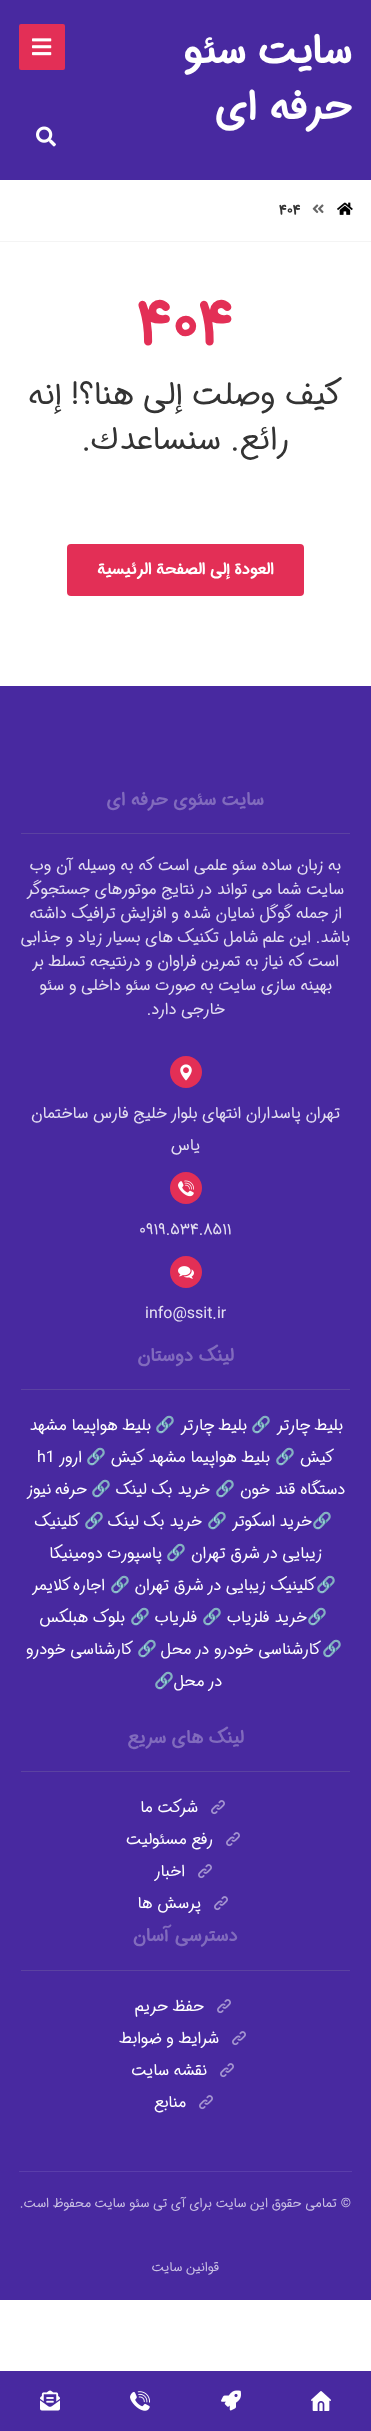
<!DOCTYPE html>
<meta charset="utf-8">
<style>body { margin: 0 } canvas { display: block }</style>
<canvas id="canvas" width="371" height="2431"></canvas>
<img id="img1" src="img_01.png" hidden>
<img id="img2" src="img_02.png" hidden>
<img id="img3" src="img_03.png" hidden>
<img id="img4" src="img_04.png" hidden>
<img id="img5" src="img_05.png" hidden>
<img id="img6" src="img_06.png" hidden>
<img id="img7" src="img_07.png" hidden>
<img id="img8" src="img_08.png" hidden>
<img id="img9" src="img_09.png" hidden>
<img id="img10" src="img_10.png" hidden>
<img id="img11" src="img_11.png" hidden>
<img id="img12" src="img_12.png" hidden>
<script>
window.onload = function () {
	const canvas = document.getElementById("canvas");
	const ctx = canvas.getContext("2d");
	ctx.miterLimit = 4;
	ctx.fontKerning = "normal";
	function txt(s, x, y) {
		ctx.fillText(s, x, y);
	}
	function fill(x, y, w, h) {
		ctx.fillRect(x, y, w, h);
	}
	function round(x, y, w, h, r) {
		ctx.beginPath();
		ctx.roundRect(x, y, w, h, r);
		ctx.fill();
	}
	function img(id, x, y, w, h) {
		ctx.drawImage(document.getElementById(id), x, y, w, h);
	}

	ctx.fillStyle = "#FFFFFF";
	fill(0, 0, 371, 2431);
	ctx.fillStyle = "#4829A0";
	fill(0, 0, 371, 180);
	ctx.fillStyle = "#E32F56";
	round(19, 24, 46, 46, 2);
	img("img1", 32, 38, 20, 18);
	img("img2", 36, 126, 20, 21);
	ctx.fillStyle = "#F4F4F4";
	fill(0, 241, 371, 1);
	img("img3", 337, 202, 16, 13);
	img("img4", 312, 204, 12, 10);
	ctx.fillStyle = "#E32F56";
	round(67, 544, 237, 52, 4);
	ctx.fillStyle = "#4829A0";
	fill(0, 686, 371, 1614);
	ctx.fillStyle = "#5B42A1";
	fill(21, 833, 329, 1);
	ctx.fillStyle = "#E32F56";
	ctx.beginPath();
	ctx.arc(186, 1072, 16, 0, Math.PI * 2);
	ctx.fill();
	img("img5", 180, 1064, 12, 17);
	ctx.beginPath();
	ctx.arc(186, 1188, 16, 0, Math.PI * 2);
	ctx.fill();
	img("img6", 178, 1180, 16, 17);
	ctx.beginPath();
	ctx.arc(186, 1272, 16, 0, Math.PI * 2);
	ctx.fill();
	img("img7", 178, 1266, 16, 13);
	ctx.fillStyle = "#5B42A1";
	fill(21, 1389, 329, 1);
	fill(21, 1771, 329, 1);
	img("img8", 211, 1800, 14, 15);
	img("img8", 226, 1832, 14, 15);
	img("img8", 198, 1864, 14, 15);
	img("img8", 214, 1896, 14, 15);
	fill(21, 1970, 329, 1);
	img("img8", 217, 1999, 14, 15);
	img("img8", 232, 2031, 14, 15);
	img("img8", 220, 2063, 14, 15);
	img("img8", 199, 2095, 14, 15);
	ctx.fillStyle = "#5A3EAA";
	fill(19, 2171, 333, 1);
	ctx.fillStyle = "#4829A0";
	fill(0, 2371, 371, 60);
	img("img9", 311, 2391, 20, 20);
	img("img10", 221, 2390, 20, 21);
	img("img11", 130, 2391, 20, 20);
	img("img12", 40, 2390, 20, 21);
	ctx.direction = "rtl";
	ctx.font = "bold 40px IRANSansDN";
	ctx.fillStyle = "#FFFFFF";
	txt("سایت سئو", 352, 63);
	txt("حرفه ای", 352, 119);
	ctx.direction = "ltr";
	ctx.font = "bold 14px IRANSansDN";
	ctx.fillStyle = "#333333";
	txt("۴۰۴", 279, 214);
	ctx.font = "bold 63px IRANSansDN";
	ctx.fillStyle = "#E32F56";
	txt("۴۰۴", 137, 342);
	ctx.direction = "rtl";
	ctx.font = "32px IRANSansDN";
	ctx.fillStyle = "#333333";
	txt("كيف وصلت إلى هنا؟! إنه", 342, 404);
	txt("رائع. سنساعدك.", 289, 449);
	ctx.font = "bold 16px IRANSansDN";
	ctx.fillStyle = "#FFFFFF";
	txt("العودة إلى الصفحة الرئيسية", 274, 574);
	ctx.font = "bold 18px IRANSansDN";
	ctx.fillStyle = "#816BBD";
	txt("سایت سئوی حرفه ای", 264, 805);
	ctx.font = "16px IRANSansDN";
	ctx.fillStyle = "#E4DFF1";
	txt("به زبان ساده سئو علمی است که به وسیله آن وب", 341, 870);
	txt("سایت شما می تواند در نتایج موتورهای جستجوگر", 344, 894);
	txt("از جمله گوگل نمایان شده و افزایش ترافیک داشته", 342, 918);
	txt("باشد. این علم شامل تکنیک های بسیار زیاد و جذابی", 350, 942);
	txt("است که نیاز به تمرین فراوان و درنتیجه تسلط بر", 339, 966);
	txt("بهینه سازی سایت به صورت سئو داخلی و سئو", 332, 990);
	txt("خارجی دارد.", 225, 1014);
	txt("تهران پاسداران انتهای بلوار خلیج فارس ساختمان", 340, 1118);
	txt("یاس", 200, 1150);
	ctx.direction = "ltr";
	txt("۰۹۱۹.۵۳۴.۸۵۱۱", 139, 1234);
	txt("info@ssit.ir", 145, 1318);
	ctx.direction = "rtl";
	ctx.font = "bold 18px IRANSansDN";
	ctx.fillStyle = "#816BBD";
	txt("لینک دوستان", 234, 1361);
	ctx.wordSpacing = "-1px";
	ctx.font = "16px IRANSansDN";
	ctx.fillStyle = "#FFFFFF";
	txt("بلیط چارتر", 343, 1430);
	ctx.wordSpacing = "0px";
	ctx.direction = "ltr";
	ctx.font = "16px Noto Color Emoji";
	ctx.fillStyle = "#E4DFF1";
	txt("🔗", 251, 1430);
	ctx.wordSpacing = "-1px";
	ctx.direction = "rtl";
	ctx.font = "16px IRANSansDN";
	ctx.fillStyle = "#FFFFFF";
	txt("بلیط چارتر", 247, 1430);
	ctx.wordSpacing = "0px";
	ctx.direction = "ltr";
	ctx.font = "16px Noto Color Emoji";
	ctx.fillStyle = "#E4DFF1";
	txt("🔗", 155, 1430);
	ctx.direction = "rtl";
	ctx.font = "16px IRANSansDN";
	ctx.fillStyle = "#FFFFFF";
	txt("بلیط هواپیما مشهد", 151, 1430);
	txt("کیش", 334, 1462);
	ctx.direction = "ltr";
	ctx.font = "16px Noto Color Emoji";
	ctx.fillStyle = "#E4DFF1";
	txt("🔗", 275, 1462);
	ctx.direction = "rtl";
	ctx.font = "16px IRANSansDN";
	ctx.fillStyle = "#FFFFFF";
	txt("بلیط هواپیما مشهد کیش", 270, 1462);
	ctx.direction = "ltr";
	ctx.font = "16px Noto Color Emoji";
	ctx.fillStyle = "#E4DFF1";
	txt("🔗", 86, 1462);
	ctx.direction = "rtl";
	ctx.font = "16px IRANSansDN";
	ctx.fillStyle = "#FFFFFF";
	txt("ارور", 82, 1462);
	ctx.direction = "ltr";
	txt("h1", 37, 1462);
	ctx.direction = "rtl";
	txt("دستگاه قند خون", 345, 1494);
	ctx.direction = "ltr";
	ctx.font = "16px Noto Color Emoji";
	ctx.fillStyle = "#E4DFF1";
	txt("🔗", 215, 1494);
	ctx.direction = "rtl";
	ctx.font = "16px IRANSansDN";
	ctx.fillStyle = "#FFFFFF";
	txt("خرید بک لینک", 210, 1494);
	ctx.direction = "ltr";
	ctx.font = "16px Noto Color Emoji";
	ctx.fillStyle = "#E4DFF1";
	txt("🔗", 91, 1494);
	ctx.wordSpacing = "-1px";
	ctx.direction = "rtl";
	ctx.font = "16px IRANSansDN";
	ctx.fillStyle = "#FFFFFF";
	txt("حرفه نیوز", 87, 1494);
	ctx.wordSpacing = "0px";
	ctx.direction = "ltr";
	ctx.font = "16px Noto Color Emoji";
	ctx.fillStyle = "#E4DFF1";
	txt("🔗", 312, 1526);
	ctx.wordSpacing = "-1px";
	ctx.direction = "rtl";
	ctx.font = "16px IRANSansDN";
	ctx.fillStyle = "#FFFFFF";
	txt("خرید اسکوتر", 312, 1526);
	ctx.wordSpacing = "0px";
	ctx.direction = "ltr";
	ctx.font = "16px Noto Color Emoji";
	ctx.fillStyle = "#E4DFF1";
	txt("🔗", 207, 1526);
	ctx.direction = "rtl";
	ctx.font = "16px IRANSansDN";
	ctx.fillStyle = "#FFFFFF";
	txt("خرید بک لینک", 202, 1526);
	ctx.direction = "ltr";
	ctx.font = "16px Noto Color Emoji";
	ctx.fillStyle = "#E4DFF1";
	txt("🔗", 84, 1526);
	ctx.direction = "rtl";
	ctx.font = "16px IRANSansDN";
	ctx.fillStyle = "#FFFFFF";
	txt("کلینیک", 80, 1526);
	txt("زیبایی در شرق تهران", 322, 1558);
	ctx.direction = "ltr";
	ctx.font = "16px Noto Color Emoji";
	ctx.fillStyle = "#E4DFF1";
	txt("🔗", 166, 1558);
	ctx.direction = "rtl";
	ctx.font = "16px IRANSansDN";
	ctx.fillStyle = "#FFFFFF";
	txt("پاسپورت دومینیکا", 162, 1558);
	ctx.direction = "ltr";
	ctx.font = "16px Noto Color Emoji";
	ctx.fillStyle = "#E4DFF1";
	txt("🔗", 316, 1590);
	ctx.direction = "rtl";
	ctx.font = "16px IRANSansDN";
	ctx.fillStyle = "#FFFFFF";
	txt("کلینیک زیبایی در شرق تهران", 316, 1590);
	ctx.direction = "ltr";
	ctx.font = "16px Noto Color Emoji";
	ctx.fillStyle = "#E4DFF1";
	txt("🔗", 110, 1590);
	ctx.wordSpacing = "-1px";
	ctx.direction = "rtl";
	ctx.font = "16px IRANSansDN";
	ctx.fillStyle = "#FFFFFF";
	txt("اجاره کلایمر", 105, 1590);
	ctx.wordSpacing = "0px";
	ctx.direction = "ltr";
	ctx.font = "16px Noto Color Emoji";
	ctx.fillStyle = "#E4DFF1";
	txt("🔗", 307, 1622);
	ctx.direction = "rtl";
	ctx.font = "16px IRANSansDN";
	ctx.fillStyle = "#FFFFFF";
	txt("خرید فلزیاب", 307, 1622);
	ctx.direction = "ltr";
	ctx.font = "16px Noto Color Emoji";
	ctx.fillStyle = "#E4DFF1";
	txt("🔗", 202, 1622);
	ctx.direction = "rtl";
	ctx.font = "16px IRANSansDN";
	ctx.fillStyle = "#FFFFFF";
	txt("فلریاب", 197, 1622);
	ctx.direction = "ltr";
	ctx.font = "16px Noto Color Emoji";
	ctx.fillStyle = "#E4DFF1";
	txt("🔗", 130, 1622);
	ctx.direction = "rtl";
	ctx.font = "16px IRANSansDN";
	ctx.fillStyle = "#FFFFFF";
	txt("بلوک هبلکس", 125, 1622);
	ctx.direction = "ltr";
	ctx.font = "16px Noto Color Emoji";
	ctx.fillStyle = "#E4DFF1";
	txt("🔗", 322, 1654);
	ctx.direction = "rtl";
	ctx.font = "16px IRANSansDN";
	ctx.fillStyle = "#FFFFFF";
	txt("کارشناسی خودرو در محل", 321, 1654);
	ctx.direction = "ltr";
	ctx.font = "16px Noto Color Emoji";
	ctx.fillStyle = "#E4DFF1";
	txt("🔗", 137, 1654);
	ctx.direction = "rtl";
	ctx.font = "16px IRANSansDN";
	ctx.fillStyle = "#FFFFFF";
	txt("کارشناسی خودرو", 133, 1654);
	txt("در محل", 222, 1686);
	ctx.direction = "ltr";
	ctx.font = "16px Noto Color Emoji";
	ctx.fillStyle = "#E4DFF1";
	txt("🔗", 154, 1686);
	ctx.direction = "rtl";
	ctx.font = "bold 18px IRANSansDN";
	ctx.fillStyle = "#816BBD";
	txt("لینک های سریع", 244, 1743);
	ctx.font = "16px IRANSansDN";
	ctx.fillStyle = "#FFFFFF";
	txt("شرکت ما", 198, 1812);
	txt("رفع مسئولیت", 213, 1844);
	txt("اخبار", 185, 1876);
	txt("پرسش ها", 201, 1908);
	ctx.font = "bold 18px IRANSansDN";
	ctx.fillStyle = "#816BBD";
	txt("دسترسی آسان", 238, 1941);
	ctx.font = "16px IRANSansDN";
	ctx.fillStyle = "#FFFFFF";
	txt("حفظ حریم", 204, 2011);
	txt("شرایط و ضوابط", 219, 2043);
	txt("نقشه سایت", 207, 2075);
	txt("منابع", 186, 2107);
	ctx.font = "13px IRANSansDN";
	ctx.fillStyle = "#C8BFE3";
	txt("© تمامی حقوق این سایت برای", 351, 2207);
	txt("آی تی سئو سایت", 186, 2207);
	txt("محفوظ است.", 91, 2207);
	txt("قوانین سایت", 219, 2271);
};
</script>
